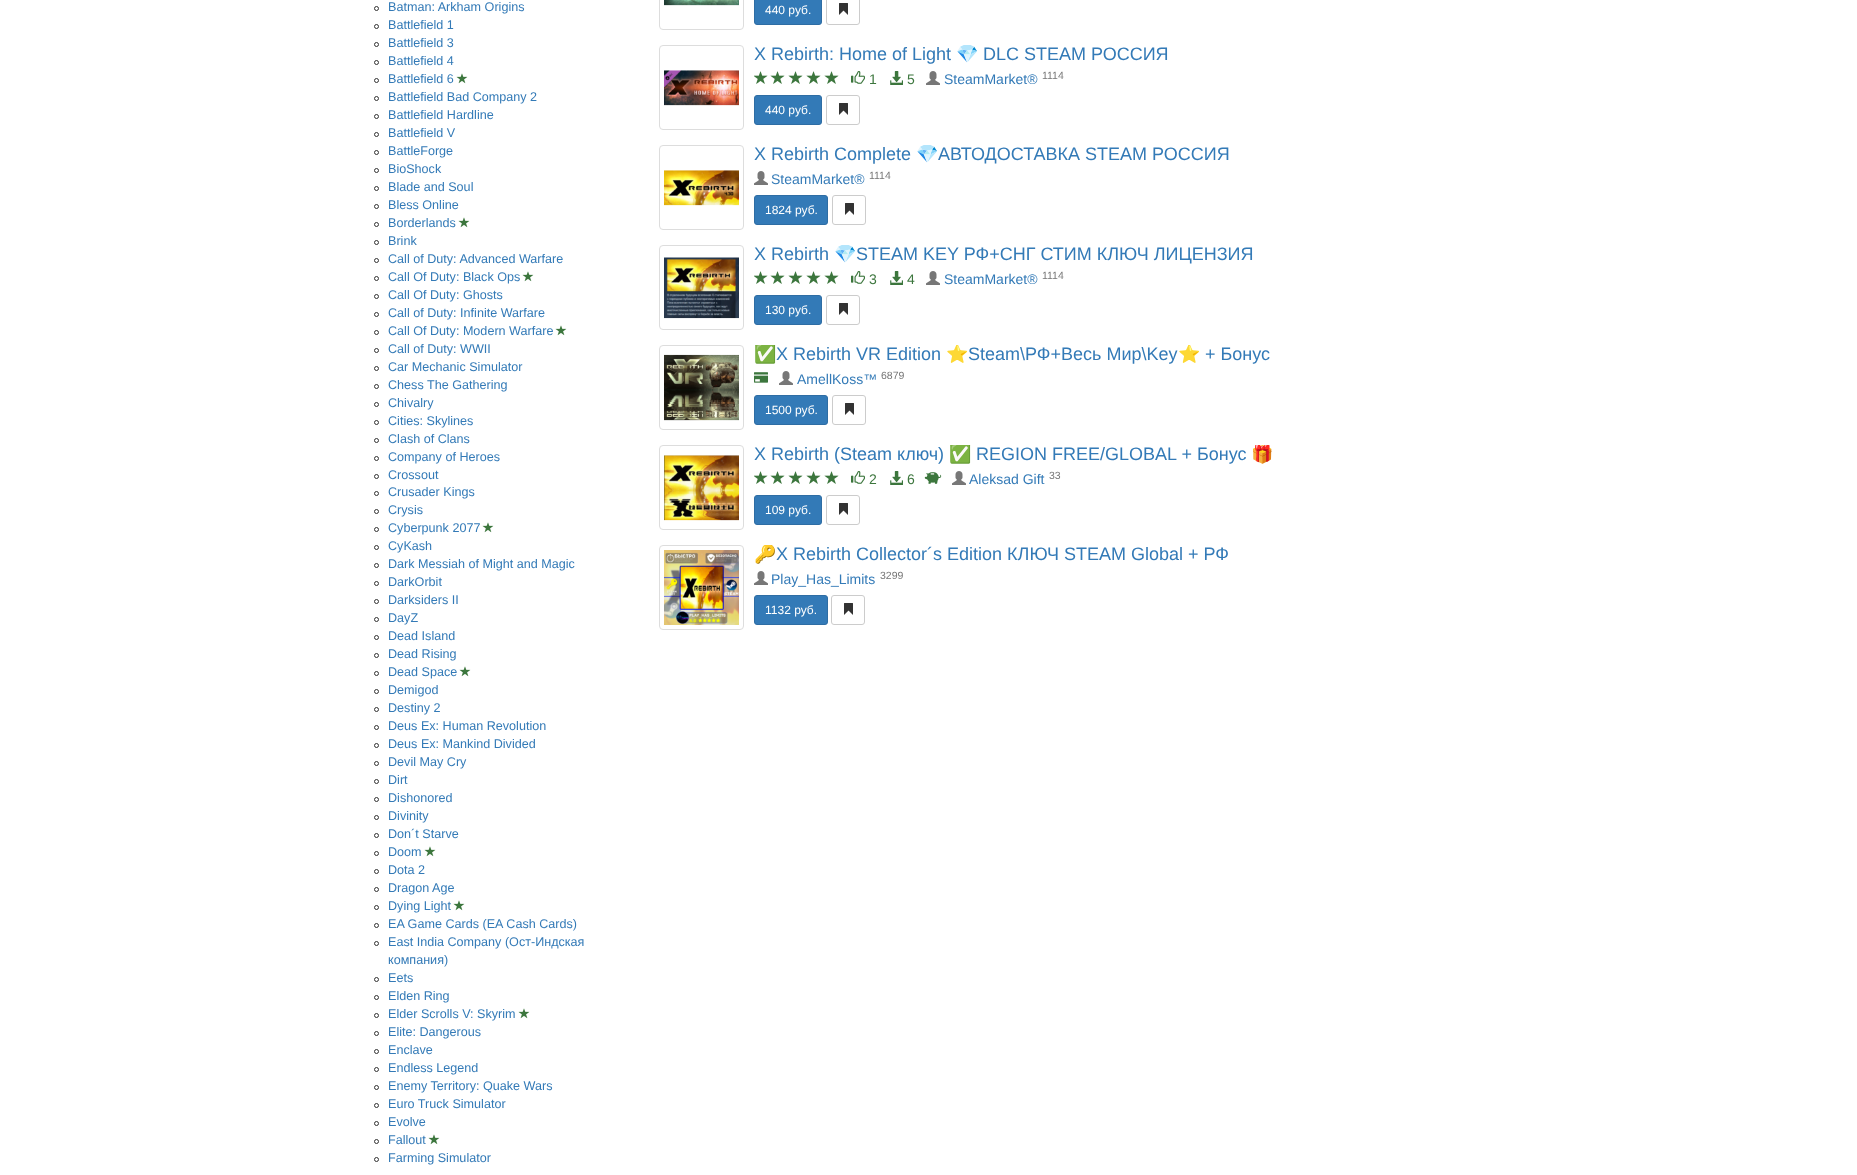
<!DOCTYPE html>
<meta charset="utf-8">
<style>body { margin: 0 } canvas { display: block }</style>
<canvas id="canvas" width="1857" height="1175"></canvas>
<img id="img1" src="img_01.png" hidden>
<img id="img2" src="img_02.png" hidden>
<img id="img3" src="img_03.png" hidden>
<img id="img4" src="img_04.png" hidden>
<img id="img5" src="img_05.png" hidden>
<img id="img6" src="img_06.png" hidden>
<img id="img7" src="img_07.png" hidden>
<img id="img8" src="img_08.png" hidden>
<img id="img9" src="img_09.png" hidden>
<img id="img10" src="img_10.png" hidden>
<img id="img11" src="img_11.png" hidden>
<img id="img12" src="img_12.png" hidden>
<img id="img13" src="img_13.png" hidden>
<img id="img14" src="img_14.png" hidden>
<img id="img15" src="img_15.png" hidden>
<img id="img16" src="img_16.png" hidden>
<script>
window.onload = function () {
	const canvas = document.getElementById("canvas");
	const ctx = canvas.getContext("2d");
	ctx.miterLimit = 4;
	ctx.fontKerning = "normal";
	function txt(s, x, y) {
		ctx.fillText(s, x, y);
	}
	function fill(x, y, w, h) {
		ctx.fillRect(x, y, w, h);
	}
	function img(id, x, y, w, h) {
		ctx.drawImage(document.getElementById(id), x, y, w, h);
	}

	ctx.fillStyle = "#FFFFFF";
	fill(0, 0, 1857, 1175);
	ctx.beginPath();
	ctx.arc(376.5, 8.5, 2, 0, Math.PI * 2);
	ctx.strokeStyle = "#333333";
	ctx.stroke();
	ctx.beginPath();
	ctx.arc(376.5, 26.5, 2, 0, Math.PI * 2);
	ctx.stroke();
	ctx.beginPath();
	ctx.arc(376.5, 44.5, 2, 0, Math.PI * 2);
	ctx.stroke();
	ctx.beginPath();
	ctx.arc(376.5, 62.5, 2, 0, Math.PI * 2);
	ctx.stroke();
	ctx.beginPath();
	ctx.arc(376.5, 80.5, 2, 0, Math.PI * 2);
	ctx.stroke();
	img("img1", 456, 73, 12, 11);
	ctx.beginPath();
	ctx.arc(376.5, 98.5, 2, 0, Math.PI * 2);
	ctx.stroke();
	ctx.beginPath();
	ctx.arc(376.5, 116.5, 2, 0, Math.PI * 2);
	ctx.stroke();
	ctx.beginPath();
	ctx.arc(376.5, 134.5, 2, 0, Math.PI * 2);
	ctx.stroke();
	ctx.beginPath();
	ctx.arc(376.5, 152.5, 2, 0, Math.PI * 2);
	ctx.stroke();
	ctx.beginPath();
	ctx.arc(376.5, 170.5, 2, 0, Math.PI * 2);
	ctx.stroke();
	ctx.beginPath();
	ctx.arc(376.5, 188.5, 2, 0, Math.PI * 2);
	ctx.stroke();
	ctx.beginPath();
	ctx.arc(376.5, 206.5, 2, 0, Math.PI * 2);
	ctx.stroke();
	ctx.beginPath();
	ctx.arc(376.5, 224.5, 2, 0, Math.PI * 2);
	ctx.stroke();
	img("img1", 458, 217, 12, 11);
	ctx.beginPath();
	ctx.arc(376.5, 242.5, 2, 0, Math.PI * 2);
	ctx.stroke();
	ctx.beginPath();
	ctx.arc(376.5, 260.5, 2, 0, Math.PI * 2);
	ctx.stroke();
	ctx.beginPath();
	ctx.arc(376.5, 278.5, 2, 0, Math.PI * 2);
	ctx.stroke();
	img("img1", 522, 271, 12, 11);
	ctx.beginPath();
	ctx.arc(376.5, 296.5, 2, 0, Math.PI * 2);
	ctx.stroke();
	ctx.beginPath();
	ctx.arc(376.5, 314.5, 2, 0, Math.PI * 2);
	ctx.stroke();
	ctx.beginPath();
	ctx.arc(376.5, 332.5, 2, 0, Math.PI * 2);
	ctx.stroke();
	img("img1", 555, 325, 12, 11);
	ctx.beginPath();
	ctx.arc(376.5, 350.5, 2, 0, Math.PI * 2);
	ctx.stroke();
	ctx.beginPath();
	ctx.arc(376.5, 368.5, 2, 0, Math.PI * 2);
	ctx.stroke();
	ctx.beginPath();
	ctx.arc(376.5, 386.5, 2, 0, Math.PI * 2);
	ctx.stroke();
	ctx.beginPath();
	ctx.arc(376.5, 404.5, 2, 0, Math.PI * 2);
	ctx.stroke();
	ctx.beginPath();
	ctx.arc(376.5, 422.5, 2, 0, Math.PI * 2);
	ctx.stroke();
	ctx.beginPath();
	ctx.arc(376.5, 440.5, 2, 0, Math.PI * 2);
	ctx.stroke();
	ctx.beginPath();
	ctx.arc(376.5, 458.5, 2, 0, Math.PI * 2);
	ctx.stroke();
	ctx.beginPath();
	ctx.arc(376.5, 476.5, 2, 0, Math.PI * 2);
	ctx.stroke();
	ctx.beginPath();
	ctx.arc(376.5, 493.5, 2, 0, Math.PI * 2);
	ctx.stroke();
	ctx.beginPath();
	ctx.arc(376.5, 511.5, 2, 0, Math.PI * 2);
	ctx.stroke();
	ctx.beginPath();
	ctx.arc(376.5, 529.5, 2, 0, Math.PI * 2);
	ctx.stroke();
	img("img1", 482, 522, 12, 11);
	ctx.beginPath();
	ctx.arc(376.5, 547.5, 2, 0, Math.PI * 2);
	ctx.stroke();
	ctx.beginPath();
	ctx.arc(376.5, 565.5, 2, 0, Math.PI * 2);
	ctx.stroke();
	ctx.beginPath();
	ctx.arc(376.5, 583.5, 2, 0, Math.PI * 2);
	ctx.stroke();
	ctx.beginPath();
	ctx.arc(376.5, 601.5, 2, 0, Math.PI * 2);
	ctx.stroke();
	ctx.beginPath();
	ctx.arc(376.5, 619.5, 2, 0, Math.PI * 2);
	ctx.stroke();
	ctx.beginPath();
	ctx.arc(376.5, 637.5, 2, 0, Math.PI * 2);
	ctx.stroke();
	ctx.beginPath();
	ctx.arc(376.5, 655.5, 2, 0, Math.PI * 2);
	ctx.stroke();
	ctx.beginPath();
	ctx.arc(376.5, 673.5, 2, 0, Math.PI * 2);
	ctx.stroke();
	img("img1", 459, 666, 12, 11);
	ctx.beginPath();
	ctx.arc(376.5, 691.5, 2, 0, Math.PI * 2);
	ctx.stroke();
	ctx.beginPath();
	ctx.arc(376.5, 709.5, 2, 0, Math.PI * 2);
	ctx.stroke();
	ctx.beginPath();
	ctx.arc(376.5, 727.5, 2, 0, Math.PI * 2);
	ctx.stroke();
	ctx.beginPath();
	ctx.arc(376.5, 745.5, 2, 0, Math.PI * 2);
	ctx.stroke();
	ctx.beginPath();
	ctx.arc(376.5, 763.5, 2, 0, Math.PI * 2);
	ctx.stroke();
	ctx.beginPath();
	ctx.arc(376.5, 781.5, 2, 0, Math.PI * 2);
	ctx.stroke();
	ctx.beginPath();
	ctx.arc(376.5, 799.5, 2, 0, Math.PI * 2);
	ctx.stroke();
	ctx.beginPath();
	ctx.arc(376.5, 817.5, 2, 0, Math.PI * 2);
	ctx.stroke();
	ctx.beginPath();
	ctx.arc(376.5, 835.5, 2, 0, Math.PI * 2);
	ctx.stroke();
	ctx.beginPath();
	ctx.arc(376.5, 853.5, 2, 0, Math.PI * 2);
	ctx.stroke();
	img("img1", 424, 846, 12, 11);
	ctx.beginPath();
	ctx.arc(376.5, 871.5, 2, 0, Math.PI * 2);
	ctx.stroke();
	ctx.beginPath();
	ctx.arc(376.5, 889.5, 2, 0, Math.PI * 2);
	ctx.stroke();
	ctx.beginPath();
	ctx.arc(376.5, 907.5, 2, 0, Math.PI * 2);
	ctx.stroke();
	img("img1", 453, 900, 12, 11);
	ctx.beginPath();
	ctx.arc(376.5, 925.5, 2, 0, Math.PI * 2);
	ctx.stroke();
	ctx.beginPath();
	ctx.arc(376.5, 943.5, 2, 0, Math.PI * 2);
	ctx.stroke();
	ctx.beginPath();
	ctx.arc(376.5, 979.5, 2, 0, Math.PI * 2);
	ctx.stroke();
	ctx.beginPath();
	ctx.arc(376.5, 997.5, 2, 0, Math.PI * 2);
	ctx.stroke();
	ctx.beginPath();
	ctx.arc(376.5, 1015.5, 2, 0, Math.PI * 2);
	ctx.stroke();
	img("img1", 518, 1008, 12, 11);
	ctx.beginPath();
	ctx.arc(376.5, 1033.5, 2, 0, Math.PI * 2);
	ctx.stroke();
	ctx.beginPath();
	ctx.arc(376.5, 1051.5, 2, 0, Math.PI * 2);
	ctx.stroke();
	ctx.beginPath();
	ctx.arc(376.5, 1069.5, 2, 0, Math.PI * 2);
	ctx.stroke();
	ctx.beginPath();
	ctx.arc(376.5, 1087.5, 2, 0, Math.PI * 2);
	ctx.stroke();
	ctx.beginPath();
	ctx.arc(376.5, 1105.5, 2, 0, Math.PI * 2);
	ctx.stroke();
	ctx.beginPath();
	ctx.arc(376.5, 1123.5, 2, 0, Math.PI * 2);
	ctx.stroke();
	ctx.beginPath();
	ctx.arc(376.5, 1141.5, 2, 0, Math.PI * 2);
	ctx.stroke();
	img("img1", 428, 1134, 12, 11);
	ctx.beginPath();
	ctx.arc(376.5, 1159.5, 2, 0, Math.PI * 2);
	ctx.stroke();
	ctx.beginPath();
	ctx.roundRect(659.5, -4.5, 84, 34, 3.5);
	ctx.strokeStyle = "#DDDDDD";
	ctx.stroke();
	img("img2", 664, 0, 75, 6);
	ctx.fillStyle = "#337AB7";
	ctx.beginPath();
	ctx.roundRect(754.5, -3.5, 67, 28, 2.5);
	ctx.fill();
	ctx.strokeStyle = "#2E6DA4";
	ctx.stroke();
	ctx.beginPath();
	ctx.roundRect(826.5, -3.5, 33, 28, 2.5);
	ctx.strokeStyle = "#CCCCCC";
	ctx.stroke();
	img("img3", 839, 3, 9, 12);
	ctx.beginPath();
	ctx.roundRect(659.5, 45.5, 84, 84, 3.5);
	ctx.strokeStyle = "#DDDDDD";
	ctx.stroke();
	img("img4", 664, 70, 75, 36);
	img("img5", 754, 71, 14, 13);
	img("img6", 770, 71, 15, 13);
	img("img6", 788, 71, 15, 13);
	img("img6", 806, 71, 15, 13);
	img("img6", 824, 71, 15, 13);
	img("img7", 851, 71, 14, 13);
	img("img8", 890, 71, 13, 14);
	img("img9", 926, 71, 14, 14);
	ctx.beginPath();
	ctx.roundRect(754.5, 95.5, 67, 29, 2.5);
	ctx.fill();
	ctx.strokeStyle = "#2E6DA4";
	ctx.stroke();
	ctx.beginPath();
	ctx.roundRect(826.5, 95.5, 33, 29, 2.5);
	ctx.strokeStyle = "#CCCCCC";
	ctx.stroke();
	img("img3", 839, 103, 9, 12);
	ctx.beginPath();
	ctx.roundRect(659.5, 145.5, 84, 84, 3.5);
	ctx.strokeStyle = "#DDDDDD";
	ctx.stroke();
	img("img10", 664, 170, 75, 36);
	img("img9", 754, 171, 14, 14);
	ctx.beginPath();
	ctx.roundRect(754.5, 195.5, 73, 29, 2.5);
	ctx.fill();
	ctx.strokeStyle = "#2E6DA4";
	ctx.stroke();
	ctx.beginPath();
	ctx.roundRect(832.5, 195.5, 33, 29, 2.5);
	ctx.strokeStyle = "#CCCCCC";
	ctx.stroke();
	img("img3", 845, 203, 9, 12);
	ctx.beginPath();
	ctx.roundRect(659.5, 245.5, 84, 84, 3.5);
	ctx.strokeStyle = "#DDDDDD";
	ctx.stroke();
	img("img11", 664, 257, 75, 62);
	img("img5", 754, 271, 14, 13);
	img("img6", 770, 271, 15, 13);
	img("img6", 788, 271, 15, 13);
	img("img6", 806, 271, 15, 13);
	img("img6", 824, 271, 15, 13);
	img("img7", 851, 271, 14, 13);
	img("img8", 890, 271, 13, 14);
	img("img9", 926, 271, 14, 14);
	ctx.beginPath();
	ctx.roundRect(754.5, 295.5, 67, 29, 2.5);
	ctx.fill();
	ctx.strokeStyle = "#2E6DA4";
	ctx.stroke();
	ctx.beginPath();
	ctx.roundRect(826.5, 295.5, 33, 29, 2.5);
	ctx.strokeStyle = "#CCCCCC";
	ctx.stroke();
	img("img3", 839, 303, 9, 12);
	ctx.beginPath();
	ctx.roundRect(659.5, 345.5, 84, 84, 3.5);
	ctx.strokeStyle = "#DDDDDD";
	ctx.stroke();
	img("img12", 664, 354, 75, 67);
	img("img13", 754, 372, 14, 11);
	img("img9", 779, 371, 14, 14);
	ctx.beginPath();
	ctx.roundRect(754.5, 395.5, 73, 29, 2.5);
	ctx.fill();
	ctx.strokeStyle = "#2E6DA4";
	ctx.stroke();
	ctx.beginPath();
	ctx.roundRect(832.5, 395.5, 33, 29, 2.5);
	ctx.strokeStyle = "#CCCCCC";
	ctx.stroke();
	img("img3", 845, 403, 9, 12);
	ctx.beginPath();
	ctx.roundRect(659.5, 445.5, 84, 84, 3.5);
	ctx.strokeStyle = "#DDDDDD";
	ctx.stroke();
	img("img14", 664, 455, 75, 66);
	img("img5", 754, 471, 14, 13);
	img("img6", 770, 471, 15, 13);
	img("img6", 788, 471, 15, 13);
	img("img6", 806, 471, 15, 13);
	img("img6", 824, 471, 15, 13);
	img("img7", 851, 471, 14, 13);
	img("img8", 890, 471, 13, 14);
	img("img15", 924, 472, 18, 12);
	img("img9", 952, 471, 14, 14);
	ctx.beginPath();
	ctx.roundRect(754.5, 495.5, 67, 29, 2.5);
	ctx.fill();
	ctx.strokeStyle = "#2E6DA4";
	ctx.stroke();
	ctx.beginPath();
	ctx.roundRect(826.5, 495.5, 33, 29, 2.5);
	ctx.strokeStyle = "#CCCCCC";
	ctx.stroke();
	img("img3", 839, 503, 9, 12);
	ctx.beginPath();
	ctx.roundRect(659.5, 545.5, 84, 84, 3.5);
	ctx.strokeStyle = "#DDDDDD";
	ctx.stroke();
	img("img16", 664, 550, 75, 75);
	img("img9", 754, 571, 14, 14);
	ctx.beginPath();
	ctx.roundRect(754.5, 595.5, 73, 29, 2.5);
	ctx.fill();
	ctx.strokeStyle = "#2E6DA4";
	ctx.stroke();
	ctx.beginPath();
	ctx.roundRect(831.5, 595.5, 33, 29, 2.5);
	ctx.strokeStyle = "#CCCCCC";
	ctx.stroke();
	img("img3", 844, 603, 9, 12);
	ctx.font = "12.6px Liberation Sans";
	txt("Batman: Arkham Origins", 388, 11);
	txt("Battlefield 1", 388, 29);
	txt("Battlefield 3", 388, 47);
	txt("Battlefield 4", 388, 65);
	txt("Battlefield 6", 388, 83);
	txt("Battlefield Bad Company 2", 388, 101);
	txt("Battlefield Hardline", 388, 119);
	txt("Battlefield V", 388, 137);
	txt("BattleForge", 388, 155);
	txt("BioShock", 388, 173);
	txt("Blade and Soul", 388, 191);
	txt("Bless Online", 388, 209);
	txt("Borderlands", 388, 227);
	txt("Brink", 388, 245);
	txt("Call of Duty: Advanced Warfare", 388, 263);
	txt("Call Of Duty: Black Ops", 388, 281);
	txt("Call Of Duty: Ghosts", 388, 299);
	txt("Call of Duty: Infinite Warfare", 388, 317);
	txt("Call Of Duty: Modern Warfare", 388, 335);
	txt("Call of Duty: WWII", 388, 353);
	txt("Car Mechanic Simulator", 388, 371);
	txt("Chess The Gathering", 388, 389);
	txt("Chivalry", 388, 407);
	txt("Cities: Skylines", 388, 425);
	txt("Clash of Clans", 388, 443);
	txt("Company of Heroes", 388, 461);
	txt("Crossout", 388, 479);
	txt("Crusader Kings", 388, 496);
	txt("Crysis", 388, 514);
	txt("Cyberpunk 2077", 388, 532);
	txt("CyKash", 388, 550);
	txt("Dark Messiah of Might and Magic", 388, 568);
	txt("DarkOrbit", 388, 586);
	txt("Darksiders II", 388, 604);
	txt("DayZ", 388, 622);
	txt("Dead Island", 388, 640);
	txt("Dead Rising", 388, 658);
	txt("Dead Space", 388, 676);
	txt("Demigod", 388, 694);
	txt("Destiny 2", 388, 712);
	txt("Deus Ex: Human Revolution", 388, 730);
	txt("Deus Ex: Mankind Divided", 388, 748);
	txt("Devil May Cry", 388, 766);
	txt("Dirt", 388, 784);
	txt("Dishonored", 388, 802);
	txt("Divinity", 388, 820);
	txt("Don´t Starve", 388, 838);
	txt("Doom", 388, 856);
	txt("Dota 2", 388, 874);
	txt("Dragon Age", 388, 892);
	txt("Dying Light", 388, 910);
	txt("EA Game Cards (EA Cash Cards)", 388, 928);
	txt("East India Company (Ост-Индская", 388, 946);
	txt("компания)", 388, 964);
	txt("Eets", 388, 982);
	txt("Elden Ring", 388, 1000);
	txt("Elder Scrolls V: Skyrim", 388, 1018);
	txt("Elite: Dangerous", 388, 1036);
	txt("Enclave", 388, 1054);
	txt("Endless Legend", 388, 1072);
	txt("Enemy Territory: Quake Wars", 388, 1090);
	txt("Euro Truck Simulator", 388, 1108);
	txt("Evolve", 388, 1126);
	txt("Fallout", 388, 1144);
	txt("Farming Simulator", 388, 1162);
	ctx.font = "12px Liberation Sans";
	ctx.fillStyle = "#FFFFFF";
	txt("440 руб.", 765, 14);
	ctx.font = "18px Liberation Sans";
	ctx.fillStyle = "#337AB7";
	txt("X Rebirth: Home of Light", 754, 60);
	ctx.save();
	ctx.beginPath();
	ctx.rect(754, 45, 730, 85);
	ctx.clip();
	ctx.font = "18px Noto Color Emoji";
	txt("💎", 956, 60);
	ctx.restore();
	txt("DLC STEAM РОССИЯ", 983, 60);
	ctx.font = "14px Liberation Sans";
	ctx.fillStyle = "#3C763D";
	txt("1", 869, 84);
	txt("5", 907, 84);
	ctx.fillStyle = "#337AB7";
	txt("SteamMarket®", 944, 84);
	ctx.font = "10.5px Liberation Sans";
	ctx.fillStyle = "#777777";
	txt("1114", 1042, 79);
	ctx.font = "12px Liberation Sans";
	ctx.fillStyle = "#FFFFFF";
	txt("440 руб.", 765, 114);
	ctx.font = "18px Liberation Sans";
	ctx.fillStyle = "#337AB7";
	txt("X Rebirth Complete", 754, 160);
	ctx.save();
	ctx.beginPath();
	ctx.rect(754, 145, 730, 85);
	ctx.clip();
	ctx.font = "18px Noto Color Emoji";
	txt("💎", 916, 160);
	ctx.restore();
	txt("АВТОДОСТАВКА STEAM РОССИЯ", 938, 160);
	ctx.font = "14px Liberation Sans";
	txt("SteamMarket®", 771, 184);
	ctx.font = "10.5px Liberation Sans";
	ctx.fillStyle = "#777777";
	txt("1114", 869, 179);
	ctx.font = "12px Liberation Sans";
	ctx.fillStyle = "#FFFFFF";
	txt("1824 руб.", 765, 214);
	ctx.font = "18px Liberation Sans";
	ctx.fillStyle = "#337AB7";
	txt("X Rebirth", 754, 260);
	ctx.save();
	ctx.beginPath();
	ctx.rect(754, 245, 730, 85);
	ctx.clip();
	ctx.font = "18px Noto Color Emoji";
	txt("💎", 834, 260);
	ctx.restore();
	txt("STEAM KEY РФ+СНГ СТИМ КЛЮЧ ЛИЦЕНЗИЯ", 856, 260);
	ctx.font = "14px Liberation Sans";
	ctx.fillStyle = "#3C763D";
	txt("3", 869, 284);
	txt("4", 907, 284);
	ctx.fillStyle = "#337AB7";
	txt("SteamMarket®", 944, 284);
	ctx.font = "10.5px Liberation Sans";
	ctx.fillStyle = "#777777";
	txt("1114", 1042, 279);
	ctx.font = "12px Liberation Sans";
	ctx.fillStyle = "#FFFFFF";
	txt("130 руб.", 765, 314);
	ctx.save();
	ctx.beginPath();
	ctx.rect(754, 345, 730, 85);
	ctx.clip();
	ctx.font = "18px Noto Color Emoji";
	ctx.fillStyle = "#337AB7";
	txt("✅", 754, 360);
	ctx.restore();
	ctx.font = "18px Liberation Sans";
	ctx.fillStyle = "#337AB7";
	txt("X Rebirth VR Edition", 776, 360);
	ctx.save();
	ctx.beginPath();
	ctx.rect(754, 345, 730, 85);
	ctx.clip();
	ctx.font = "18px Noto Color Emoji";
	txt("⭐", 946, 360);
	ctx.restore();
	txt("Steam\\РФ+Весь Мир\\Key", 968, 360);
	ctx.save();
	ctx.beginPath();
	ctx.rect(754, 345, 730, 85);
	ctx.clip();
	ctx.font = "18px Noto Color Emoji";
	txt("⭐", 1178, 360);
	ctx.restore();
	txt("+ Бонус", 1205, 360);
	ctx.font = "14px Liberation Sans";
	txt("AmellKoss™", 797, 384);
	ctx.font = "10.5px Liberation Sans";
	ctx.fillStyle = "#777777";
	txt("6879", 881, 379);
	ctx.font = "12px Liberation Sans";
	ctx.fillStyle = "#FFFFFF";
	txt("1500 руб.", 765, 414);
	ctx.font = "18px Liberation Sans";
	ctx.fillStyle = "#337AB7";
	txt("X Rebirth (Steam ключ)", 754, 460);
	ctx.save();
	ctx.beginPath();
	ctx.rect(754, 445, 730, 85);
	ctx.clip();
	ctx.font = "18px Noto Color Emoji";
	txt("✅", 949, 460);
	ctx.restore();
	txt("REGION FREE/GLOBAL + Бонус", 976, 460);
	ctx.save();
	ctx.beginPath();
	ctx.rect(754, 445, 730, 85);
	ctx.clip();
	ctx.font = "18px Noto Color Emoji";
	txt("🎁", 1251, 460);
	ctx.restore();
	ctx.font = "14px Liberation Sans";
	ctx.fillStyle = "#3C763D";
	txt("2", 869, 484);
	txt("6", 907, 484);
	ctx.fillStyle = "#337AB7";
	txt("Aleksad Gift", 969, 484);
	ctx.font = "10.5px Liberation Sans";
	ctx.fillStyle = "#777777";
	txt("33", 1049, 479);
	ctx.font = "12px Liberation Sans";
	ctx.fillStyle = "#FFFFFF";
	txt("109 руб.", 765, 514);
	ctx.save();
	ctx.beginPath();
	ctx.rect(754, 545, 730, 85);
	ctx.clip();
	ctx.font = "18px Noto Color Emoji";
	ctx.fillStyle = "#337AB7";
	txt("🔑", 754, 560);
	ctx.restore();
	ctx.font = "18px Liberation Sans";
	ctx.fillStyle = "#337AB7";
	txt("X Rebirth Collector´s Edition КЛЮЧ STEAM Global + РФ", 776, 560);
	ctx.font = "14px Liberation Sans";
	txt("Play_Has_Limits", 771, 584);
	ctx.font = "10.5px Liberation Sans";
	ctx.fillStyle = "#777777";
	txt("3299", 880, 579);
	ctx.font = "12px Liberation Sans";
	ctx.fillStyle = "#FFFFFF";
	txt("1132 руб.", 765, 614);
};
</script>
